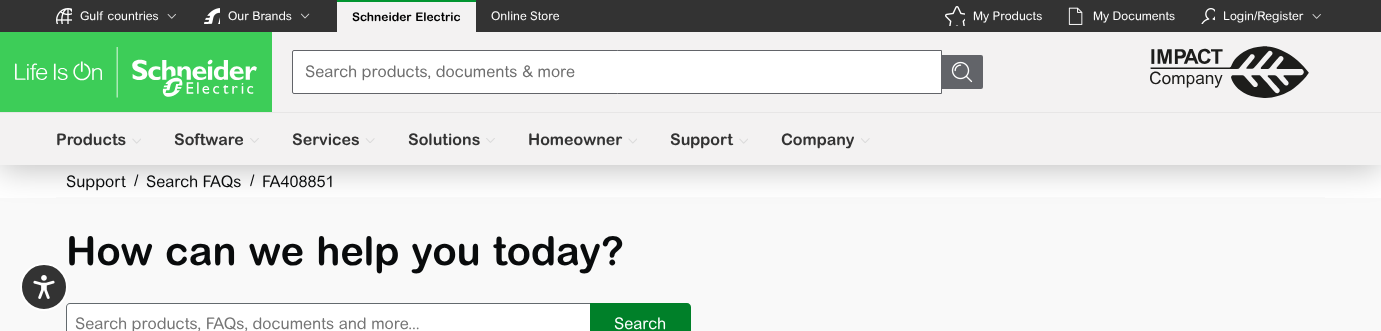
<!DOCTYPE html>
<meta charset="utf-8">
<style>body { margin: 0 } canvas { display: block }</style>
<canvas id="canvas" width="1381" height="331"></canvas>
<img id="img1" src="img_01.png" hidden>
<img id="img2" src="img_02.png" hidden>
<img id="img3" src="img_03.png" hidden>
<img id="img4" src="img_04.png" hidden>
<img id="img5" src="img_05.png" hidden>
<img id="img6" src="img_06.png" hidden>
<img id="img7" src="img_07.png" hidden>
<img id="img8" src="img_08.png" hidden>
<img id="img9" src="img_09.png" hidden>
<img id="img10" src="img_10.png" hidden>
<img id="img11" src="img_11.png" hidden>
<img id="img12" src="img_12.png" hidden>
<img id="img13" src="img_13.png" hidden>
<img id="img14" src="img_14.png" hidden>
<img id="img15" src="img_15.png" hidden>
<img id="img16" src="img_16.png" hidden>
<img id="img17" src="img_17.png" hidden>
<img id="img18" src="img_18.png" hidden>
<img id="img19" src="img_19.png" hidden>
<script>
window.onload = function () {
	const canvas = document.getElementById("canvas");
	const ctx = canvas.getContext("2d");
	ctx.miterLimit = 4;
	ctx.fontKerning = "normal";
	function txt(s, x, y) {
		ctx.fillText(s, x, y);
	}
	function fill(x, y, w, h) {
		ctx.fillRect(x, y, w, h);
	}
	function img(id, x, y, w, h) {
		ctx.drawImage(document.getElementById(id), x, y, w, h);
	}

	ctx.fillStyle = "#F9F9F9";
	fill(0, 0, 1381, 331);
	ctx.fillStyle = "#FFFFFF";
	fill(0, 165, 1381, 33);
	ctx.fillStyle = "#FAFAFA";
	fill(56, 197, 1269, 1);
	ctx.fillStyle = "rgba(0, 0, 0, 0.25)";
	ctx.filter = "blur(16px)";
	ctx.beginPath();
	ctx.rect(0, 36, 1381, 133);
	ctx.fill();
	ctx.filter = "none";
	ctx.fillStyle = "#333333";
	fill(0, 0, 1381, 32);
	img("img1", 56, 8, 16, 16);
	img("img2", 167, 14, 9, 5);
	img("img3", 204, 8, 16, 16);
	img("img4", 300, 13, 10, 6);
	ctx.fillStyle = "#F3F2F2";
	fill(337, 2, 139, 30);
	ctx.fillStyle = "#009530";
	fill(337, 0, 139, 2);
	img("img5", 945, 6, 20, 20);
	img("img6", 1068, 7, 15, 18);
	img("img7", 1201, 8, 14, 16);
	img("img8", 1312, 14, 9, 5);
	ctx.fillStyle = "#F3F2F2";
	fill(0, 32, 1381, 133);
	ctx.fillStyle = "#E7E6E6";
	fill(0, 112, 1381, 1);
	ctx.fillStyle = "#3DCD58";
	fill(0, 32, 272, 80);
	img("img9", 15, 47, 242, 51);
	ctx.fillStyle = "#FFFFFF";
	ctx.beginPath();
	ctx.roundRect(292.5, 50.5, 649, 43, [1.5, 0, 0, 1.5]);
	ctx.fill();
	ctx.strokeStyle = "#626469";
	ctx.stroke();
	ctx.fillStyle = "#626469";
	ctx.beginPath();
	ctx.roundRect(942, 55, 41, 34, [0, 2, 2, 0]);
	ctx.fill();
	img("img10", 951, 61, 22, 22);
	img("img11", 1150, 46, 159, 52);
	img("img12", 132, 138, 9, 6);
	img("img13", 250, 138, 9, 5);
	img("img14", 365, 138, 10, 5);
	img("img15", 486, 138, 9, 5);
	img("img16", 628, 138, 9, 6);
	img("img17", 739, 138, 9, 6);
	img("img18", 861, 138, 9, 5);
	ctx.fillStyle = "#FFFFFF";
	ctx.beginPath();
	ctx.moveTo(70, 304);
	ctx.lineTo(590, 304);
	ctx.lineTo(590, 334);
	ctx.lineTo(70, 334);
	ctx.bezierCurveTo(68.5, 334, 67, 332.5, 67, 331);
	ctx.lineTo(67, 307);
	ctx.bezierCurveTo(67, 305.5, 68.5, 304, 70, 304);
	ctx.closePath();
	ctx.fill();
	ctx.fillStyle = "#636A6E";
	ctx.beginPath();
	ctx.moveTo(70, 303);
	ctx.lineTo(590, 303);
	ctx.lineTo(590, 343);
	ctx.lineTo(70, 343);
	ctx.bezierCurveTo(68, 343, 66, 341, 66, 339);
	ctx.lineTo(66, 307);
	ctx.bezierCurveTo(66, 305, 68, 303, 70, 303);
	ctx.closePath();
	ctx.moveTo(70, 304);
	ctx.lineTo(590, 304);
	ctx.lineTo(590, 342);
	ctx.lineTo(70, 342);
	ctx.bezierCurveTo(68, 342, 67, 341, 67, 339);
	ctx.lineTo(67, 307);
	ctx.bezierCurveTo(67, 305, 68, 304, 70, 304);
	ctx.closePath();
	ctx.fill("evenodd");
	ctx.fillStyle = "#333333";
	ctx.beginPath();
	ctx.arc(44, 287, 23, 0, Math.PI * 2);
	ctx.fill();
	ctx.strokeStyle = "#FFFFFF";
	ctx.lineWidth = 2;
	ctx.stroke();
	img("img19", 33, 275, 22, 24);
	ctx.fillStyle = "#008029";
	ctx.beginPath();
	ctx.moveTo(590, 303);
	ctx.lineTo(687, 303);
	ctx.bezierCurveTo(689, 303, 691, 305, 691, 307);
	ctx.lineTo(691, 331);
	ctx.bezierCurveTo(691, 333, 689, 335, 687, 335);
	ctx.lineTo(590, 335);
	ctx.closePath();
	ctx.fill();
	ctx.font = "12px 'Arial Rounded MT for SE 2'";
	ctx.fillStyle = "#FFFFFF";
	txt("Gulf countries", 80, 20);
	txt("Our Brands", 228, 20);
	ctx.font = "bold 12px 'Arial Rounded MT for SE 2'";
	ctx.fillStyle = "#000000";
	txt("Schneider Electric", 352, 21);
	ctx.font = "12px 'Arial Rounded MT for SE 2'";
	ctx.fillStyle = "#FFFFFF";
	txt("Online Store", 491, 20);
	txt("My Products", 973, 20);
	txt("My Documents", 1093, 20);
	txt("Login/Register", 1223, 20);
	ctx.font = "16px 'Arial Rounded MT for SE 2'";
	ctx.fillStyle = "#6F6F6F";
	txt("Search products, documents & more", 305, 77);
	ctx.font = "bold 16px 'Arial Rounded MT for SE 2'";
	ctx.fillStyle = "#333333";
	txt("Products", 56, 145);
	txt("Software", 174, 145);
	txt("Services", 292, 145);
	txt("Solutions", 408, 145);
	txt("Homeowner", 528, 145);
	txt("Support", 670, 145);
	txt("Company", 781, 145);
	ctx.font = "16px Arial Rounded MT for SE";
	ctx.fillStyle = "#090B0C";
	txt("Support", 66, 187);
	txt("/", 134, 186);
	txt("Search FAQs", 146, 187);
	txt("/", 250, 186);
	txt("FA408851", 262, 187);
	ctx.font = "bold 40px Arial Rounded MT for SE";
	txt("How can we help you today?", 66, 265);
	ctx.font = "16px Arial Rounded MT for SE";
	ctx.fillStyle = "#757575";
	txt("Search products, FAQs, documents and more...", 75, 329);
	ctx.fillStyle = "#FFFFFF";
	txt("Search", 614, 329);
};
</script>
